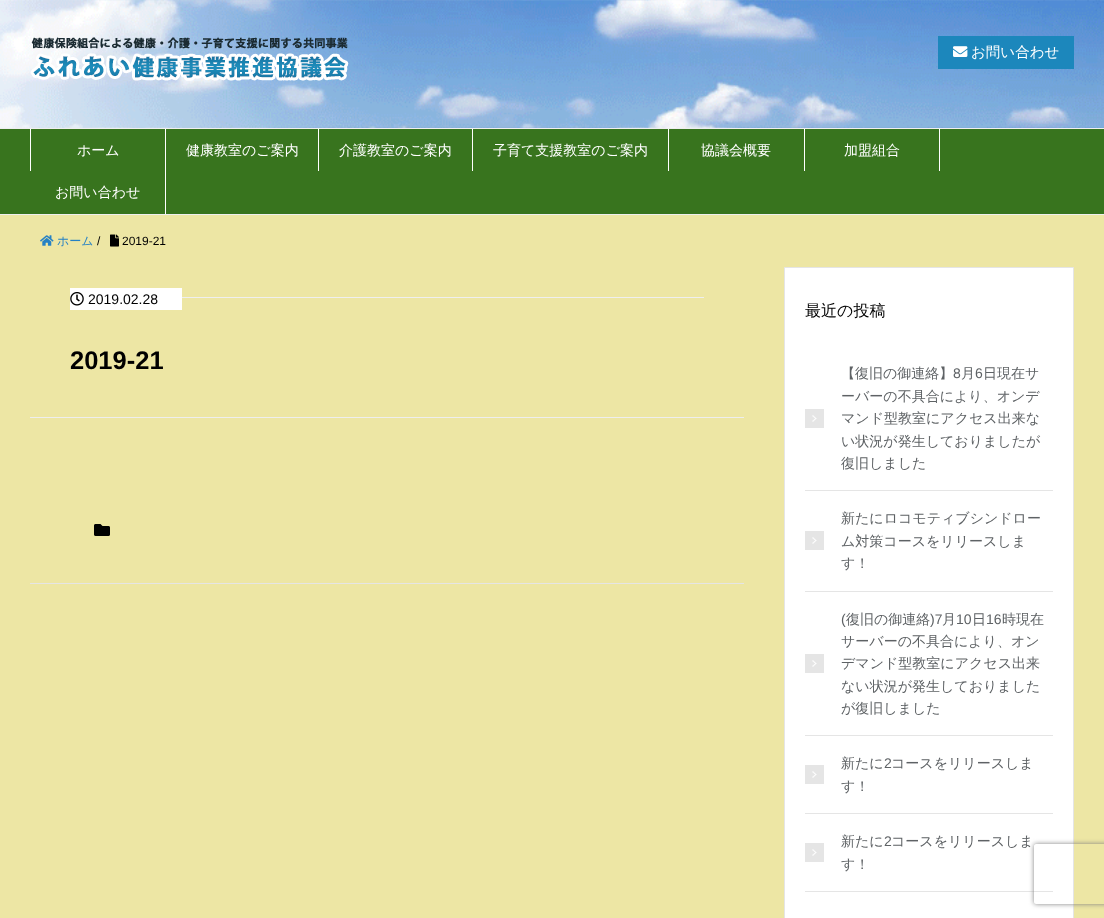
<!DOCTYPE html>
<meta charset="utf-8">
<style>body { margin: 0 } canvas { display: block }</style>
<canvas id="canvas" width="1104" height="918"></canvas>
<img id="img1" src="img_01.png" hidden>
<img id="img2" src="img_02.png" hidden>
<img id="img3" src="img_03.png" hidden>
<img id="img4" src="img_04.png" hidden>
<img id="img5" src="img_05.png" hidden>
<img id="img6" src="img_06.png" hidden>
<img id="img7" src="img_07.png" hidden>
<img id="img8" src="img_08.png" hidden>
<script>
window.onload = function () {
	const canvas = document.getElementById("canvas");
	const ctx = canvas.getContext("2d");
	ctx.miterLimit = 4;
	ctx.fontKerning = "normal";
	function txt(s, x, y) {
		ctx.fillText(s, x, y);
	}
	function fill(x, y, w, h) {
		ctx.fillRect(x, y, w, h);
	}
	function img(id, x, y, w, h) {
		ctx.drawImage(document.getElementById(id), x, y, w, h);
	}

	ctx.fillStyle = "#EDE6A4";
	fill(0, 0, 1104, 918);
	img("img1", 0, 0, 1104, 128);
	img("img2", 30, 37, 319, 44);
	ctx.fillStyle = "#1C87BC";
	fill(938, 36, 136, 33);
	img("img3", 953, 46, 15, 11);
	ctx.fillStyle = "#38741E";
	fill(0, 129, 1104, 85);
	ctx.fillStyle = "#EFEFEF";
	fill(0, 128, 1104, 1);
	fill(0, 214, 1104, 1);
	ctx.fillStyle = "#FFFFFF";
	fill(30, 129, 1, 42);
	fill(165, 129, 1, 85);
	fill(318, 129, 1, 42);
	fill(472, 129, 1, 42);
	fill(668, 129, 1, 42);
	fill(804, 129, 1, 42);
	fill(939, 129, 1, 42);
	img("img4", 40, 235, 14, 11);
	img("img5", 110, 234, 9, 13);
	ctx.fillStyle = "#EEEEEE";
	fill(30, 417, 714, 1);
	ctx.fillStyle = "#EFEFEF";
	fill(182, 297, 522, 1);
	ctx.fillStyle = "#FFFFFF";
	fill(70, 288, 112, 22);
	img("img6", 70, 292, 14, 14);
	img("img7", 94, 524, 16, 12);
	ctx.fillStyle = "#E5E5E5";
	fill(30, 583, 714, 1);
	ctx.fillStyle = "#FFFFFF";
	ctx.beginPath();
	ctx.rect(784.5, 267.5, 289, 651);
	ctx.fill();
	ctx.strokeStyle = "#E5E5E5";
	ctx.stroke();
	ctx.fillStyle = "#E5E5E5";
	fill(805, 490, 248, 1);
	img("img8", 805, 409, 19, 19);
	fill(805, 591, 248, 1);
	img("img8", 805, 531, 19, 19);
	fill(805, 735, 248, 1);
	img("img8", 805, 654, 19, 19);
	fill(805, 813, 248, 1);
	img("img8", 805, 765, 19, 19);
	fill(805, 891, 248, 1);
	img("img8", 805, 843, 19, 19);
	ctx.save();
	ctx.beginPath();
	ctx.moveTo(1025, 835);
	ctx.lineTo(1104, 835);
	ctx.lineTo(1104, 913);
	ctx.lineTo(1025, 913);
	ctx.closePath();
	ctx.moveTo(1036, 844);
	ctx.lineTo(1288, 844);
	ctx.bezierCurveTo(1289, 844, 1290, 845, 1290, 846);
	ctx.lineTo(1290, 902);
	ctx.bezierCurveTo(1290, 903, 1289, 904, 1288, 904);
	ctx.lineTo(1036, 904);
	ctx.bezierCurveTo(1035, 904, 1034, 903, 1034, 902);
	ctx.lineTo(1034, 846);
	ctx.bezierCurveTo(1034, 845, 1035, 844, 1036, 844);
	ctx.closePath();
	ctx.clip("evenodd");
	ctx.fillStyle = "#808080";
	ctx.filter = "blur(2.5px)";
	ctx.beginPath();
	ctx.roundRect(1034, 844, 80, 60, 2);
	ctx.fill();
	ctx.filter = "none";
	ctx.restore();
	ctx.font = "500 14.5px WenQuanYi Zen Hei";
	ctx.fillStyle = "#FFFFFF";
	txt("お問い合わせ", 971, 57);
	ctx.font = "500 14px WenQuanYi Zen Hei";
	txt("ホーム", 77, 155);
	txt("健康教室のご案内", 186, 155);
	txt("介護教室のご案内", 339, 155);
	txt("子育て支援教室のご案内", 493, 155);
	txt("協議会概要", 701, 155);
	txt("加盟組合", 844, 155);
	txt("お問い合わせ", 55, 197);
	ctx.font = "500 12px WenQuanYi Zen Hei";
	ctx.fillStyle = "#2581C4";
	txt("ホーム", 57, 245);
	ctx.font = "12px Liberation Sans";
	ctx.fillStyle = "#000000";
	txt("/", 97, 245);
	txt("2019-21", 122, 245);
	ctx.font = "14px Liberation Sans";
	txt("2019.02.28", 88, 304);
	ctx.font = "bold 25.5px Liberation Sans";
	txt("2019-21", 70, 369);
	ctx.font = "500 16px WenQuanYi Zen Hei";
	txt("最近の投稿", 805, 316);
	ctx.font = "500 14px WenQuanYi Zen Hei";
	ctx.fillStyle = "#5E6265";
	txt("【復旧の御連絡】", 841, 378);
	ctx.font = "14px Liberation Sans";
	txt("8", 953, 378);
	ctx.font = "500 14px WenQuanYi Zen Hei";
	txt("月", 961, 378);
	ctx.font = "14px Liberation Sans";
	txt("6", 975, 378);
	ctx.font = "500 14px WenQuanYi Zen Hei";
	txt("日現在サ", 983, 378);
	txt("ーバーの不具合により、オンデ", 841, 401);
	txt("マンド型教室にアクセス出来な", 841, 423);
	txt("い状況が発生しておりましたが", 841, 446);
	txt("復旧しました", 841, 468);
	txt("新たにロコモティブシンドロー", 841, 523);
	txt("ム対策コースをリリースしま", 841, 546);
	txt("す！", 841, 568);
	ctx.font = "14px Liberation Sans";
	txt("(", 841, 624);
	ctx.font = "500 14px WenQuanYi Zen Hei";
	txt("復旧の御連絡", 846, 624);
	ctx.font = "14px Liberation Sans";
	txt(")7", 930, 624);
	ctx.font = "500 14px WenQuanYi Zen Hei";
	txt("月", 942, 624);
	ctx.font = "14px Liberation Sans";
	txt("10", 956, 624);
	ctx.font = "500 14px WenQuanYi Zen Hei";
	txt("日", 972, 624);
	ctx.font = "14px Liberation Sans";
	txt("16", 986, 624);
	ctx.font = "500 14px WenQuanYi Zen Hei";
	txt("時現在", 1002, 624);
	txt("サーバーの不具合により、オン", 841, 646);
	txt("デマンド型教室にアクセス出来", 841, 668);
	txt("ない状況が発生しておりました", 841, 691);
	txt("が復旧しました", 841, 713);
	txt("新たに", 841, 768);
	ctx.font = "14px Liberation Sans";
	txt("2", 884, 768);
	ctx.font = "500 14px WenQuanYi Zen Hei";
	txt("コースをリリースしま", 891, 768);
	txt("す！", 841, 791);
	txt("新たに", 841, 846);
	ctx.font = "14px Liberation Sans";
	txt("2", 884, 846);
	ctx.font = "500 14px WenQuanYi Zen Hei";
	txt("コースをリリースしま", 891, 846);
	txt("す！", 841, 869);
};
</script>
